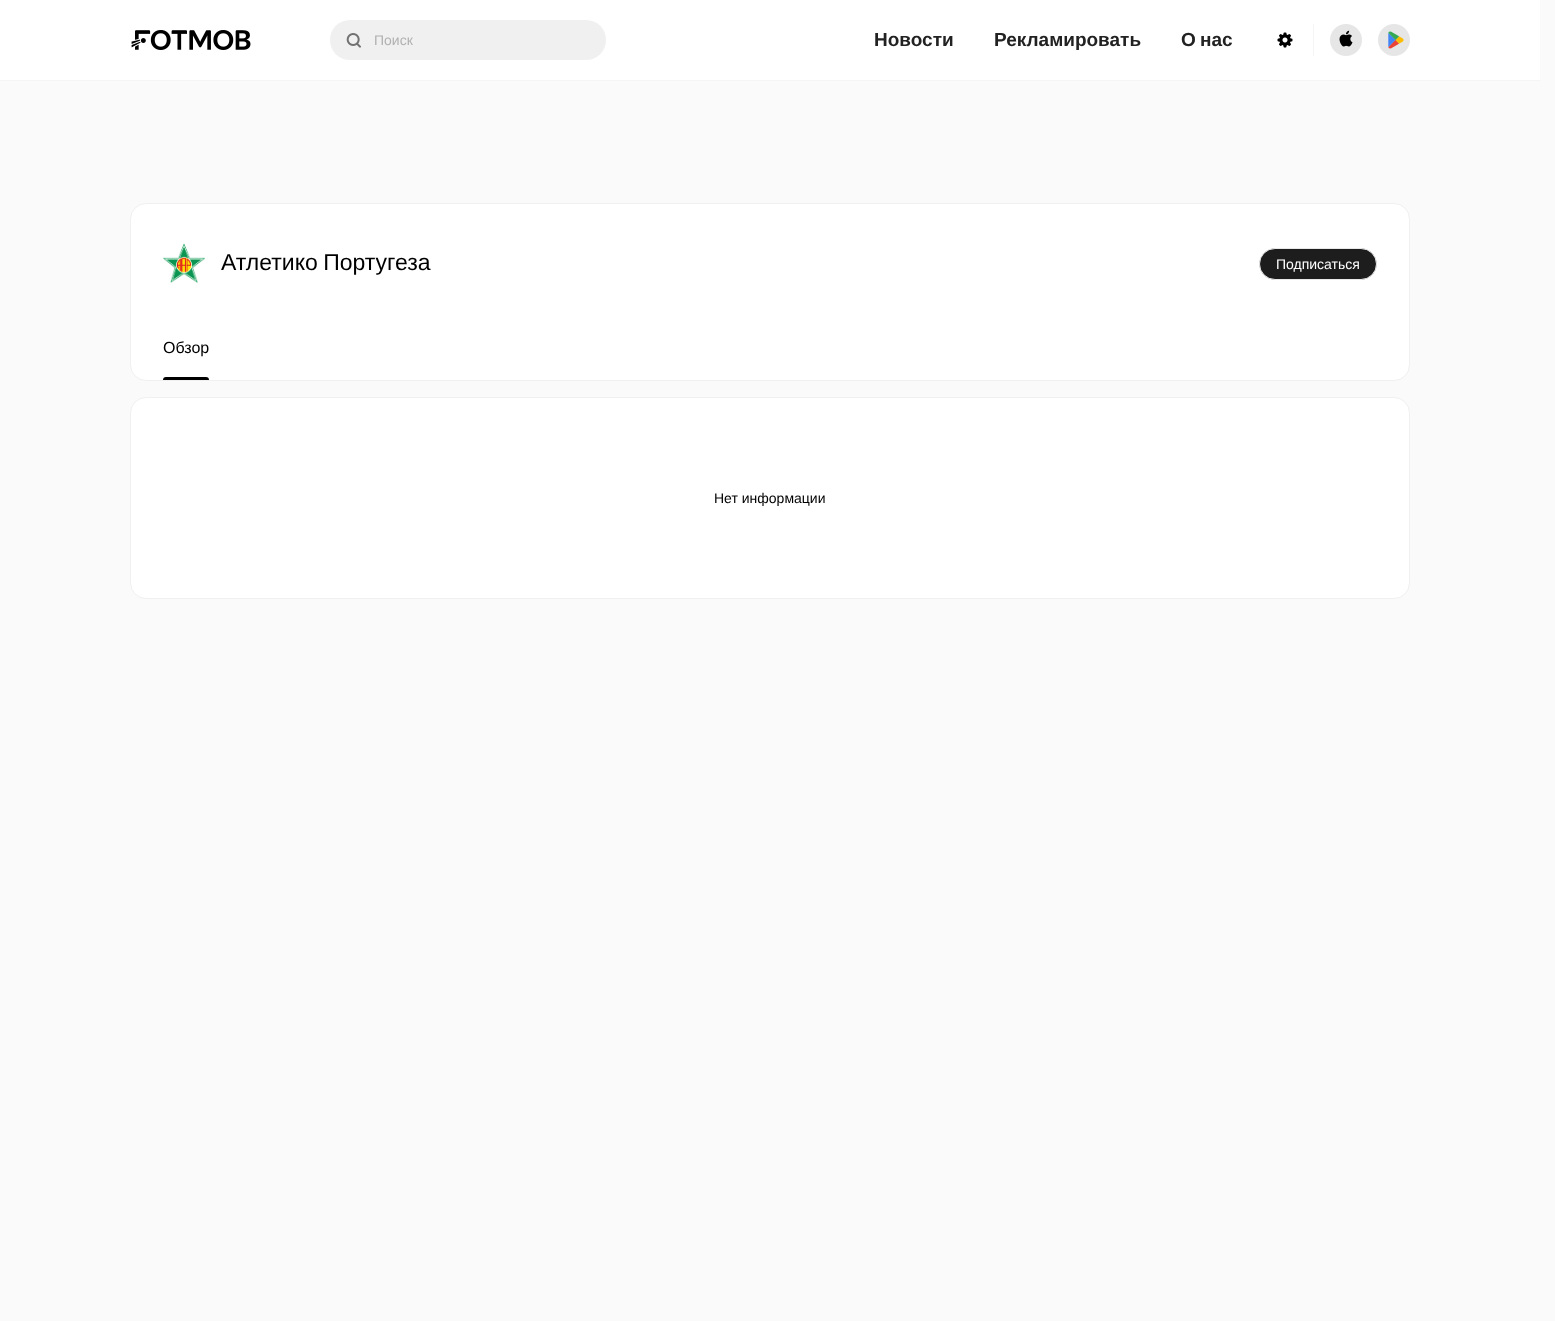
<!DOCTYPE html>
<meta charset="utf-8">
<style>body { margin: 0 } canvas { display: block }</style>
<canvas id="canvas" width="1555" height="1321"></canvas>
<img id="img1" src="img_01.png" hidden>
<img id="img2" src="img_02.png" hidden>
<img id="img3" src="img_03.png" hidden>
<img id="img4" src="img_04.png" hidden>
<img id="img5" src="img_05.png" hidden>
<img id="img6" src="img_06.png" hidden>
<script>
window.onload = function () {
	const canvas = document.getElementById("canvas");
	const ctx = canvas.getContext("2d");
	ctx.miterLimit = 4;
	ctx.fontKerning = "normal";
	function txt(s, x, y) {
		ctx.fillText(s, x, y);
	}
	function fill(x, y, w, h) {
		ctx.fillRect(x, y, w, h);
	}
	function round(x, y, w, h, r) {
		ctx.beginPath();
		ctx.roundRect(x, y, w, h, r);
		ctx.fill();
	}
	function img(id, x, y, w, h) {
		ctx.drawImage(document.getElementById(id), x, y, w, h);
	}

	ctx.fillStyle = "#FAFAFA";
	fill(0, 0, 1555, 1321);
	ctx.fillStyle = "#F5F5F5";
	fill(0, 80, 1540, 1);
	ctx.fillStyle = "#FFFFFF";
	fill(0, 0, 1540, 80);
	img("img1", 131, 30, 120, 20);
	ctx.fillStyle = "#F0F0F0";
	round(330, 20, 276, 40, 20);
	img("img2", 346, 33, 15, 15);
	img("img3", 1277, 32, 16, 16);
	ctx.fillStyle = "#F5F5F5";
	fill(1313, 24, 1, 32);
	img("img4", 1330, 24, 32, 32);
	img("img5", 1378, 24, 32, 32);
	ctx.fillStyle = "#FFFFFF";
	ctx.beginPath();
	ctx.roundRect(130.5, 203.5, 1279, 177, 15.5);
	ctx.fill();
	ctx.strokeStyle = "#F0F0F0";
	ctx.stroke();
	img("img6", 163, 243, 42, 41);
	ctx.fillStyle = "#1D1D1D";
	ctx.beginPath();
	ctx.roundRect(1259.5, 248.5, 117, 31, 15.5);
	ctx.fill();
	ctx.strokeStyle = "#E8E8E8";
	ctx.stroke();
	ctx.fillStyle = "#000000";
	ctx.beginPath();
	ctx.roundRect(163, 377, 46, 3, [3, 3, 0, 0]);
	ctx.fill();
	ctx.fillStyle = "#FFFFFF";
	ctx.beginPath();
	ctx.roundRect(130.5, 397.5, 1279, 201, 15.5);
	ctx.fill();
	ctx.strokeStyle = "#F0F0F0";
	ctx.stroke();
	ctx.font = "14px Liberation Sans";
	ctx.fillStyle = "#B1B1B1";
	txt("Поиск", 374, 45);
	ctx.font = "bold 19px Liberation Sans";
	ctx.fillStyle = "#222222";
	txt("Новости", 874, 46);
	txt("Рекламировать", 994, 46);
	ctx.wordSpacing = "-1px";
	txt("О нас", 1181, 46);
	ctx.font = "23px Liberation Sans";
	ctx.fillStyle = "#000000";
	txt("Атлетико Португеза", 221, 270);
	ctx.wordSpacing = "0px";
	ctx.font = "14px Liberation Sans";
	ctx.fillStyle = "#FFFFFF";
	txt("Подписаться", 1276, 269);
	ctx.font = "16px Liberation Sans";
	ctx.fillStyle = "#000000";
	txt("Обзор", 163, 353);
	ctx.font = "14px Liberation Sans";
	txt("Нет информации", 714, 503);
};
</script>
